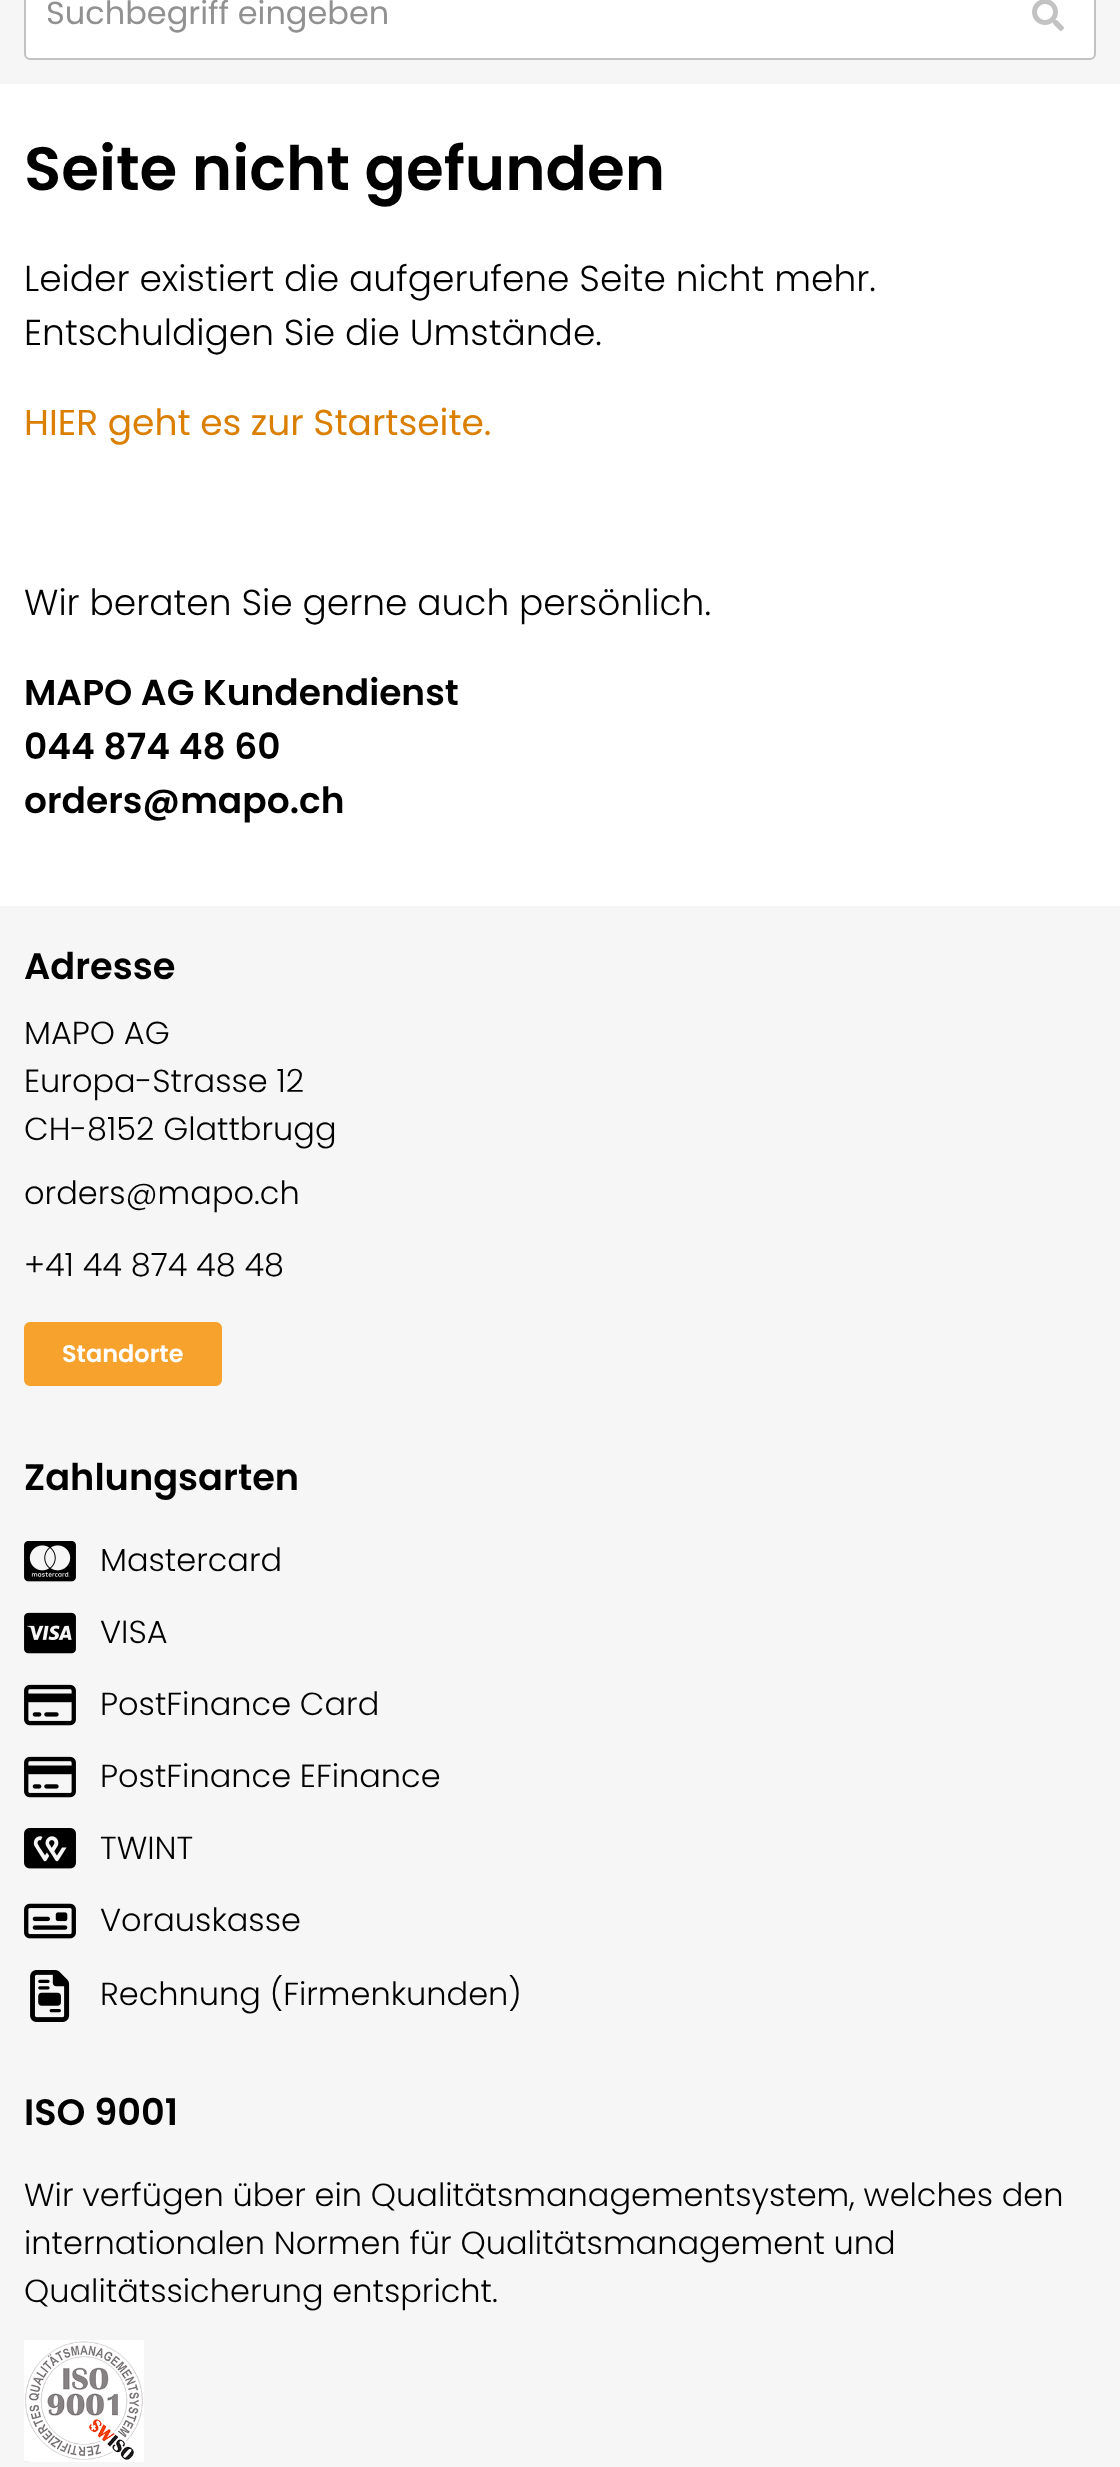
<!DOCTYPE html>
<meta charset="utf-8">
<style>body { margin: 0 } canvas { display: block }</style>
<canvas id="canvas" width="1120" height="2467"></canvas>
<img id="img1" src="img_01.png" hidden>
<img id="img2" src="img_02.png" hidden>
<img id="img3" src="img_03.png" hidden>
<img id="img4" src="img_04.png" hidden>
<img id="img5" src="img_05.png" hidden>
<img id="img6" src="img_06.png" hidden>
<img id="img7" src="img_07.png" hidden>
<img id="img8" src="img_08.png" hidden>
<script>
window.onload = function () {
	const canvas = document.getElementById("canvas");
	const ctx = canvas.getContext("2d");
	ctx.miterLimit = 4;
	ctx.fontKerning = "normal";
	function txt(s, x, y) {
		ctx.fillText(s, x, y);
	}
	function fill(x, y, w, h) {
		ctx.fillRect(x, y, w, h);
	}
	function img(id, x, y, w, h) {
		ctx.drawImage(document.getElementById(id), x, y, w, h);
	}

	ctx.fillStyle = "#FFFFFF";
	fill(0, 0, 1120, 2467);
	ctx.fillStyle = "#F6F6F6";
	fill(0, 0, 1120, 84);
	ctx.fillStyle = "#FFFFFF";
	ctx.beginPath();
	ctx.roundRect(25, -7, 1070, 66, 5);
	ctx.fill();
	ctx.strokeStyle = "#C2C2C2";
	ctx.lineWidth = 2;
	ctx.stroke();
	img("img1", 1032, 0, 32, 31);
	ctx.fillStyle = "#F6F6F6";
	fill(0, 906, 1120, 1561);
	ctx.fillStyle = "#F6A22D";
	ctx.beginPath();
	ctx.roundRect(25, 1323, 196, 62, 5);
	ctx.fill();
	ctx.strokeStyle = "#F6A22D";
	ctx.stroke();
	img("img2", 24, 1541, 52, 41);
	img("img3", 24, 1612, 52, 42);
	img("img4", 24, 1684, 52, 42);
	img("img4", 24, 1756, 52, 42);
	img("img5", 24, 1828, 52, 41);
	img("img6", 24, 1903, 52, 36);
	img("img7", 30, 1970, 40, 52);
	img("img8", 24, 2340, 120, 122);
	ctx.font = "32px Poppins";
	ctx.fillStyle = "#919191";
	txt("Suchbegriff eingeben", 46, 24);
	ctx.font = "600 61.1px Poppins";
	ctx.fillStyle = "#000000";
	txt("Seite nicht gefunden", 24, 190);
	ctx.font = "300 36px Poppins";
	txt("Leider existiert die aufgerufene Seite nicht mehr.", 24, 291);
	txt("Entschuldigen Sie die Umstände.", 24, 345);
	ctx.font = "36px Poppins";
	ctx.fillStyle = "#DB7F00";
	txt("HIER geht es zur Startseite.", 24, 435);
	ctx.font = "300 36px Poppins";
	ctx.fillStyle = "#000000";
	txt("Wir beraten Sie gerne auch persönlich.", 24, 615);
	ctx.font = "600 36px Poppins";
	txt("MAPO AG Kundendienst", 24, 705);
	txt("044 874 48 60", 24, 759);
	txt("orders@mapo.ch", 24, 813);
	ctx.font = "600 36.75px Poppins";
	txt("Adresse", 24, 979);
	ctx.font = "300 32px Poppins";
	txt("MAPO AG", 24, 1044);
	txt("Europa-Strasse 12", 24, 1092);
	txt("CH-8152 Glattbrugg", 24, 1140);
	txt("orders@mapo.ch", 24, 1204);
	txt("+41 44 874 48 48", 24, 1276);
	ctx.font = "600 24px Poppins";
	ctx.fillStyle = "#FFFFFF";
	txt("Standorte", 62, 1362);
	ctx.font = "600 36.75px Poppins";
	ctx.fillStyle = "#000000";
	txt("Zahlungsarten", 24, 1490);
	ctx.font = "300 32px Poppins";
	txt("Mastercard", 100, 1571);
	txt("VISA", 100, 1643);
	txt("PostFinance Card", 100, 1715);
	txt("PostFinance EFinance", 100, 1787);
	txt("TWINT", 100, 1859);
	txt("Vorauskasse", 100, 1931);
	txt("Rechnung (Firmenkunden)", 100, 2005);
	ctx.font = "600 36.75px Poppins";
	txt("ISO 9001", 24, 2125);
	ctx.font = "300 32px Poppins";
	txt("Wir verfügen über ein Qualitätsmanagementsystem, welches den", 24, 2206);
	txt("internationalen Normen für Qualitätsmanagement und", 24, 2254);
	txt("Qualitätssicherung entspricht.", 24, 2302);
};
</script>
